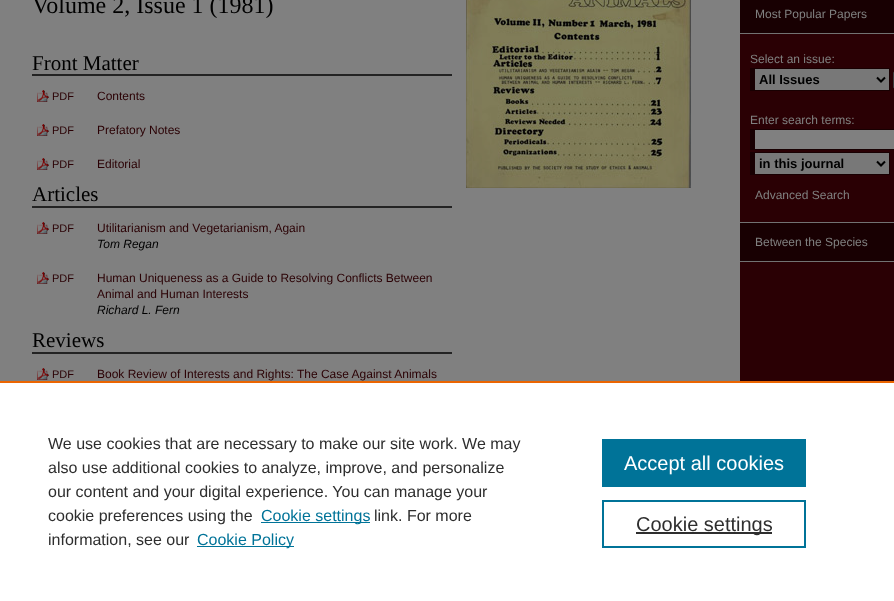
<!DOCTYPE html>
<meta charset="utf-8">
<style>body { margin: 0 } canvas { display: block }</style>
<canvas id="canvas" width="894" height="601"></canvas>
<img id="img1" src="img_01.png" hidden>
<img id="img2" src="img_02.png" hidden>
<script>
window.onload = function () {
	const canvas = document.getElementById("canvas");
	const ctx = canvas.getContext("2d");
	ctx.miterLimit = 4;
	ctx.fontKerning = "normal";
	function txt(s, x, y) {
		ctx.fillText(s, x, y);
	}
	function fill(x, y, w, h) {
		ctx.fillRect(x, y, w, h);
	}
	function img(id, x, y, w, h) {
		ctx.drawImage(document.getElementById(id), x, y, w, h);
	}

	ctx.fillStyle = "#2A0004";
	fill(0, 0, 894, 601);
	ctx.fillStyle = "#808080";
	fill(0, 0, 740, 381);
	ctx.fillStyle = "#232323";
	fill(32, 74, 420, 2);
	img("img1", 37, 90, 12, 12);
	img("img1", 37, 124, 12, 12);
	img("img1", 37, 158, 12, 12);
	fill(32, 206, 420, 2);
	img("img1", 37, 222, 12, 12);
	img("img1", 37, 272, 12, 12);
	fill(32, 352, 420, 2);
	img("img1", 37, 368, 12, 12);
	img("img2", 466, 0, 225, 188);
	ctx.fillStyle = "#180002";
	fill(740, 0, 154, 33);
	ctx.fillStyle = "#727272";
	fill(740, 33, 154, 1);
	ctx.fillStyle = "#787878";
	fill(755, 69, 134, 21);
	ctx.fillStyle = "#180002";
	fill(750, 68, 140, 1);
	fill(889, 68, 1, 23);
	fill(750, 90, 140, 1);
	fill(750, 68, 5, 23);
	ctx.beginPath();
	ctx.moveTo(877, 77.5);
	ctx.lineTo(881, 81.5);
	ctx.lineTo(885, 77.5);
	ctx.strokeStyle = "#000000";
	ctx.lineWidth = 2;
	ctx.stroke();
	ctx.beginPath();
	ctx.roundRect(893.5, 71.5, 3, 17, 1.5);
	ctx.strokeStyle = "#3B3B3B";
	ctx.lineWidth = 1;
	ctx.stroke();
	ctx.fillStyle = "#808080";
	fill(755, 130, 139, 19);
	ctx.fillStyle = "#180002";
	fill(750, 129, 144, 1);
	fill(750, 149, 144, 1);
	fill(750, 129, 5, 21);
	ctx.fillStyle = "#787878";
	fill(755, 153, 134, 21);
	ctx.fillStyle = "#180002";
	fill(750, 152, 140, 1);
	fill(889, 152, 1, 23);
	fill(750, 174, 140, 1);
	fill(750, 152, 5, 23);
	ctx.beginPath();
	ctx.moveTo(877, 161.5);
	ctx.lineTo(881, 165.5);
	ctx.lineTo(885, 161.5);
	ctx.strokeStyle = "#000000";
	ctx.lineWidth = 2;
	ctx.stroke();
	ctx.fillStyle = "#727272";
	fill(740, 222, 154, 1);
	fill(740, 261, 154, 1);
	ctx.fillStyle = "#180002";
	fill(740, 223, 154, 38);
	ctx.fillStyle = "#FFFFFF";
	fill(0, 383, 894, 218);
	ctx.fillStyle = "#EB6500";
	fill(0, 381, 894, 2);
	ctx.fillStyle = "#007398";
	fill(261, 522, 109, 1);
	fill(197, 546, 97, 1);
	fill(602, 439, 204, 48);
	ctx.strokeStyle = "#007398";
	ctx.strokeRect(603, 501, 202, 46);
	ctx.fillStyle = "#2E2E2E";
	fill(636, 532, 136, 2);
	ctx.font = "24px Liberation Serif";
	ctx.fillStyle = "#000000";
	txt("Volume 2, Issue 1 (1981)", 32, 13);
	ctx.font = "21px Liberation Serif";
	txt("Front Matter", 32, 70);
	ctx.font = "11px Liberation Sans";
	ctx.fillStyle = "#2A0004";
	txt("PDF", 52, 100);
	ctx.font = "12px Liberation Sans";
	txt("Contents", 97, 100);
	ctx.font = "11px Liberation Sans";
	txt("PDF", 52, 134);
	ctx.font = "12px Liberation Sans";
	txt("Prefatory Notes", 97, 134);
	ctx.font = "11px Liberation Sans";
	txt("PDF", 52, 168);
	ctx.font = "12px Liberation Sans";
	txt("Editorial", 97, 168);
	ctx.font = "21px Liberation Serif";
	ctx.fillStyle = "#000000";
	txt("Articles", 32, 201);
	ctx.font = "11px Liberation Sans";
	ctx.fillStyle = "#2A0004";
	txt("PDF", 52, 232);
	ctx.font = "12px Liberation Sans";
	txt("Utilitarianism and Vegetarianism, Again", 97, 232);
	ctx.font = "italic 12px Liberation Sans";
	ctx.fillStyle = "#000000";
	txt("Tom Regan", 97, 248);
	ctx.font = "11px Liberation Sans";
	ctx.fillStyle = "#2A0004";
	txt("PDF", 52, 282);
	ctx.font = "12px Liberation Sans";
	txt("Human Uniqueness as a Guide to Resolving Conflicts Between", 97, 282);
	txt("Animal and Human Interests", 97, 298);
	ctx.font = "italic 12px Liberation Sans";
	ctx.fillStyle = "#000000";
	txt("Richard L. Fern", 97, 314);
	ctx.font = "21px Liberation Serif";
	txt("Reviews", 32, 347);
	ctx.font = "11px Liberation Sans";
	ctx.fillStyle = "#2A0004";
	txt("PDF", 52, 378);
	ctx.font = "12px Liberation Sans";
	txt("Book Review of Interests and Rights: The Case Against Animals", 97, 378);
	ctx.fillStyle = "#808080";
	txt("Most Popular Papers", 755, 18);
	txt("Select an issue:", 750, 63);
	ctx.font = "bold 13px Liberation Sans";
	ctx.fillStyle = "#000000";
	txt("All Issues", 759, 84);
	ctx.font = "12px Liberation Sans";
	ctx.fillStyle = "#808080";
	txt("Enter search terms:", 750, 124);
	ctx.font = "bold 13px Liberation Sans";
	ctx.fillStyle = "#000000";
	txt("in this journal", 759, 168);
	ctx.font = "12px Liberation Sans";
	ctx.fillStyle = "#808080";
	txt("Advanced Search", 755, 199);
	txt("Between the Species", 755, 246);
	ctx.font = "16px Liberation Sans";
	ctx.fillStyle = "#2E2E2E";
	txt("We use cookies that are necessary to make our site work. We may", 48, 449);
	txt("also use additional cookies to analyze, improve, and personalize", 48, 473);
	txt("our content and your digital experience. You can manage your", 48, 497);
	txt("cookie preferences using the", 48, 521);
	ctx.fillStyle = "#007398";
	txt("Cookie settings", 261, 521);
	ctx.fillStyle = "#2E2E2E";
	txt("link. For more", 374, 521);
	txt("information, see our", 48, 545);
	ctx.fillStyle = "#007398";
	txt("Cookie Policy", 197, 545);
	ctx.font = "20px Liberation Sans";
	ctx.fillStyle = "#FFFFFF";
	txt("Accept all cookies", 624, 470);
	ctx.fillStyle = "#2E2E2E";
	txt("Cookie settings", 636, 531);
};
</script>
